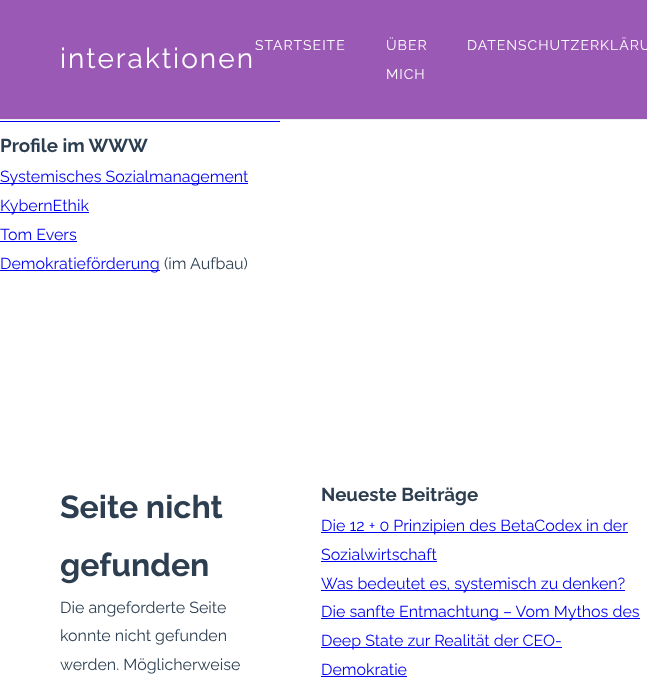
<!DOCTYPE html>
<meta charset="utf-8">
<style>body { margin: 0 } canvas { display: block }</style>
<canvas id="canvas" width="647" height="680"></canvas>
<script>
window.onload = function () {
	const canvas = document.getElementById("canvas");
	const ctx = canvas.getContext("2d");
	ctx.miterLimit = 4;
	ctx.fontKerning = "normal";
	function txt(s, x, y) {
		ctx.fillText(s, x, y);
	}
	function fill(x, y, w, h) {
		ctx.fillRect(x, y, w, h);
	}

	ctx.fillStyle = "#FFFFFF";
	fill(0, 0, 647, 680);
	ctx.fillStyle = "#9B59B6";
	fill(0, 0, 647, 119);
	ctx.fillStyle = "#ECF0F1";
	fill(0, 119, 647, 1);
	ctx.fillStyle = "#0000EE";
	fill(0, 121, 280, 1);
	fill(0, 183, 248, 1);
	fill(0, 212, 89, 1);
	fill(0, 241, 77, 1);
	fill(0, 270, 160, 1);
	fill(321, 532, 307, 1);
	fill(321, 561, 116, 1);
	fill(321, 590, 304, 1);
	fill(321, 618, 319, 1);
	fill(321, 647, 241, 1);
	fill(321, 676, 86, 1);
	ctx.letterSpacing = "2px";
	ctx.font = "100 28px 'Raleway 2'";
	ctx.fillStyle = "#FFFFFF";
	txt("interaktionen", 60, 68);
	ctx.letterSpacing = "1px";
	ctx.font = "100 14px 'Raleway 2'";
	txt("STARTSEITE", 255, 50);
	txt("ÜBER", 386, 50);
	txt("MICH", 386, 79);
	txt("DATENSCHUTZERKLÄRU", 467, 50);
	ctx.letterSpacing = "0px";
	ctx.font = "100 18.75px Raleway";
	ctx.fillStyle = "#2C3E50";
	txt("Profile im WWW", 0, 152);
	ctx.font = "100 16px 'Raleway 2'";
	ctx.fillStyle = "#0000EE";
	txt("Systemisches Sozialmanagement", 0, 182);
	txt("KybernEthik", 0, 211);
	txt("Tom Evers", 0, 240);
	txt("Demokratieförderung", 0, 269);
	ctx.fillStyle = "#2C3E50";
	txt("(im Aufbau)", 164, 269);
	ctx.font = "100 32px Raleway";
	txt("Seite nicht", 60, 518);
	txt("gefunden", 60, 576);
	ctx.font = "100 16px 'Raleway 2'";
	txt("Die angeforderte Seite", 60, 613);
	txt("konnte nicht gefunden", 60, 641);
	txt("werden. Möglicherweise", 60, 670);
	ctx.font = "100 18.75px Raleway";
	txt("Neueste Beiträge", 321, 501);
	ctx.font = "100 16px 'Raleway 2'";
	ctx.fillStyle = "#0000EE";
	txt("Die 12 + 0 Prinzipien des BetaCodex in der", 321, 531);
	txt("Sozialwirtschaft", 321, 560);
	txt("Was bedeutet es, systemisch zu denken?", 321, 589);
	txt("Die sanfte Entmachtung – Vom Mythos des", 321, 617);
	txt("Deep State zur Realität der CEO-", 321, 646);
	txt("Demokratie", 321, 675);
};
</script>
